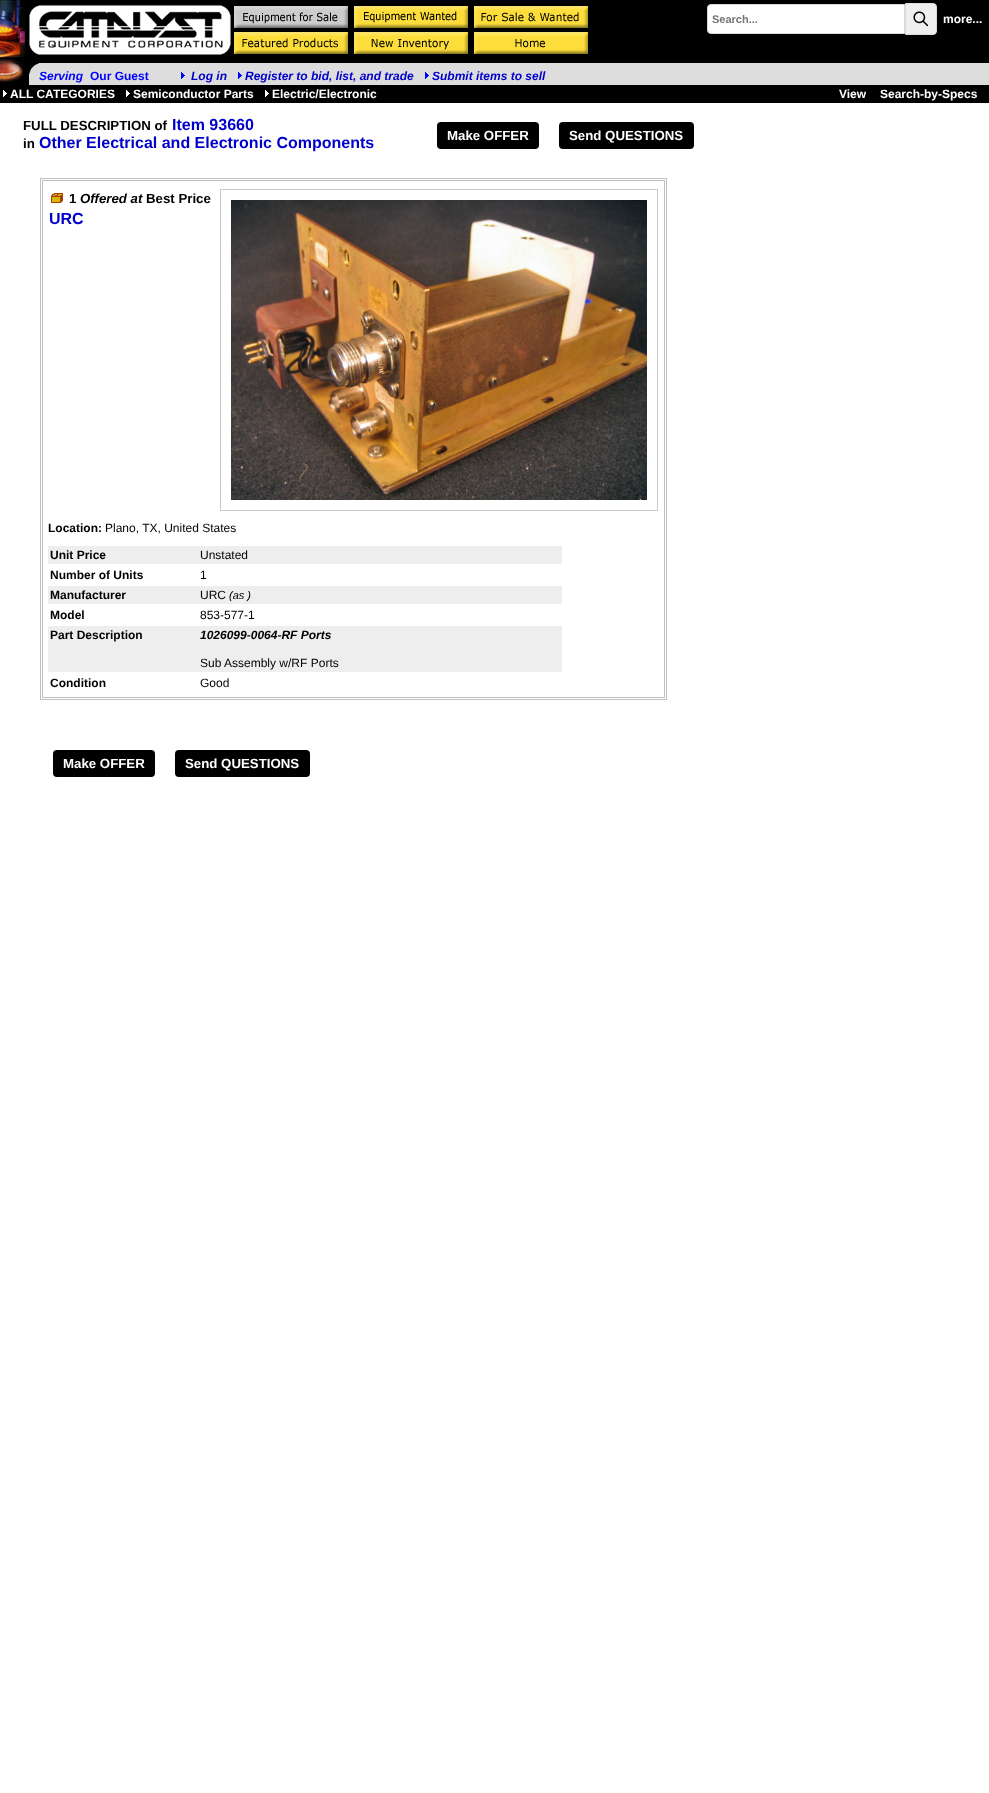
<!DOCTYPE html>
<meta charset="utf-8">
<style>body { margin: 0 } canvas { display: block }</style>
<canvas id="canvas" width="989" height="1793"></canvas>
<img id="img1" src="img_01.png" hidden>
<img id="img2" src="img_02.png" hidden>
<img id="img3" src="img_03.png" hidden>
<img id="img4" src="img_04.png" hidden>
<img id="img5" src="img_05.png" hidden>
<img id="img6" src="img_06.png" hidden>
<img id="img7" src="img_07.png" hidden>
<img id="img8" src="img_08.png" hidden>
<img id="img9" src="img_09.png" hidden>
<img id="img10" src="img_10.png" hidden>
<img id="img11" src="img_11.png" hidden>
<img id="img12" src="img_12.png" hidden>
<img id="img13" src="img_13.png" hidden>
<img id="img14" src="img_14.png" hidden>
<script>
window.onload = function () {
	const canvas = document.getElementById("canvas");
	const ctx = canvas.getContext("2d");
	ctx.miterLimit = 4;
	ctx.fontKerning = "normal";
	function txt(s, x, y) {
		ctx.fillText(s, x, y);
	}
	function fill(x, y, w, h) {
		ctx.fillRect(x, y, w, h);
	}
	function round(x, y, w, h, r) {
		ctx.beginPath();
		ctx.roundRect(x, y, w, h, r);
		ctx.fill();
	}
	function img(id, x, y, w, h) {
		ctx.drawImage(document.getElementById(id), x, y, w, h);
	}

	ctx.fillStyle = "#FFFFFF";
	fill(0, 0, 989, 1793);
	ctx.fillStyle = "#000000";
	fill(26, 0, 963, 85);
	img("img1", 0, 0, 26, 85);
	img("img2", 29, 5, 202, 50);
	img("img3", 234, 6, 114, 22);
	img("img4", 354, 6, 114, 22);
	img("img5", 474, 6, 114, 22);
	img("img6", 234, 32, 114, 22);
	img("img7", 354, 32, 114, 22);
	img("img8", 474, 32, 114, 22);
	ctx.fillStyle = "#FFFFFF";
	ctx.beginPath();
	ctx.roundRect(707.5, 4.5, 197, 29, [3.5, 0, 0, 3.5]);
	ctx.fill();
	ctx.strokeStyle = "#DADADA";
	ctx.stroke();
	ctx.fillStyle = "#EFEFEF";
	ctx.beginPath();
	ctx.roundRect(905.5, 3.5, 31, 31, [0, 3.5, 3.5, 0]);
	ctx.fill();
	ctx.stroke();
	img("img9", 913, 11, 16, 16);
	ctx.fillStyle = "#DDDDDD";
	fill(29, 63, 960, 22);
	img("img10", 29, 63, 10, 11);
	img("img11", 181, 72, 4, 7);
	img("img11", 238, 72, 4, 7);
	img("img11", 425, 72, 4, 7);
	ctx.fillStyle = "#000000";
	fill(0, 85, 989, 18);
	img("img12", 3, 90, 4, 7);
	img("img12", 126, 90, 4, 7);
	img("img12", 265, 90, 4, 7);
	round(437, 122, 102, 27, 4);
	round(559, 122, 135, 27, 4);
	ctx.strokeStyle = "#C0C0C0";
	ctx.strokeRect(40.5, 178.5, 626, 521);
	ctx.strokeRect(42.5, 180.5, 622, 517);
	img("img13", 51, 193, 12, 10);
	ctx.strokeStyle = "#CACACA";
	ctx.strokeRect(220.5, 189.5, 437, 321);
	img("img14", 231, 200, 416, 300);
	ctx.fillStyle = "#EEEEEE";
	fill(48, 546, 514, 18);
	fill(48, 586, 514, 18);
	fill(48, 626, 514, 46);
	ctx.fillStyle = "#000000";
	round(53, 750, 102, 27, 4);
	round(175, 750, 135, 27, 4);
	ctx.font = "bold 11px Liberation Sans";
	ctx.fillStyle = "#757575";
	txt("Search...", 712, 23);
	ctx.font = "bold 12px Liberation Sans";
	ctx.fillStyle = "#FFFFFF";
	txt("more...", 943, 23);
	ctx.font = "italic bold 12px Liberation Sans";
	ctx.fillStyle = "#0000FF";
	txt("Serving", 39, 80);
	ctx.font = "bold 12px Liberation Sans";
	txt("Our Guest", 90, 80);
	ctx.font = "italic bold 12px Liberation Sans";
	ctx.fillStyle = "#0000CC";
	txt("Log in", 191, 80);
	txt("Register to bid, list, and trade", 245, 80);
	txt("Submit items to sell", 432, 80);
	ctx.font = "bold 12px Liberation Sans";
	ctx.fillStyle = "#FFFFFF";
	txt("ALL CATEGORIES", 10, 98);
	txt("Semiconductor Parts", 133, 98);
	txt("Electric/Electronic", 272, 98);
	txt("View", 839, 98);
	txt("Search-by-Specs", 880, 98);
	ctx.font = "bold 13.25px Liberation Sans";
	ctx.fillStyle = "#000000";
	txt("FULL DESCRIPTION of", 23, 130);
	ctx.font = "bold 16px Liberation Sans";
	ctx.fillStyle = "#0000CC";
	txt("Item 93660", 172, 130);
	ctx.font = "bold 13.25px Liberation Sans";
	ctx.fillStyle = "#000000";
	txt("in", 23, 148);
	ctx.font = "bold 16px Liberation Sans";
	ctx.fillStyle = "#0000CC";
	txt("Other Electrical and Electronic Components", 39, 148);
	ctx.font = "bold 13.25px Liberation Sans";
	ctx.fillStyle = "#FFFFFF";
	txt("Make OFFER", 447, 140);
	txt("Send QUESTIONS", 569, 140);
	ctx.fillStyle = "#000000";
	txt("1", 69, 203);
	ctx.font = "italic bold 13.25px Liberation Sans";
	txt("Offered at", 80, 203);
	ctx.font = "bold 13.25px Liberation Sans";
	txt("Best Price", 146, 203);
	ctx.font = "bold 16px Liberation Sans";
	ctx.fillStyle = "#0000CC";
	txt("URC", 49, 224);
	ctx.font = "bold 12px Liberation Sans";
	ctx.fillStyle = "#000000";
	txt("Location:", 48, 532);
	ctx.font = "12px Liberation Sans";
	txt("Plano, TX, United States", 105, 532);
	ctx.font = "bold 12px Liberation Sans";
	txt("Unit Price", 50, 559);
	ctx.font = "12px Liberation Sans";
	txt("Unstated", 200, 559);
	ctx.font = "bold 12px Liberation Sans";
	txt("Number of Units", 50, 579);
	ctx.font = "12px Liberation Sans";
	txt("1", 200, 579);
	ctx.font = "bold 12px Liberation Sans";
	txt("Manufacturer", 50, 599);
	ctx.font = "12px Liberation Sans";
	txt("URC", 200, 599);
	ctx.font = "italic 11px Liberation Sans";
	txt("(as )", 229, 599);
	ctx.font = "bold 12px Liberation Sans";
	txt("Model", 50, 619);
	ctx.font = "12px Liberation Sans";
	txt("853-577-1", 200, 619);
	ctx.font = "bold 12px Liberation Sans";
	txt("Part Description", 50, 639);
	ctx.font = "italic bold 12px Liberation Sans";
	txt("1026099-0064-RF Ports", 200, 639);
	ctx.font = "12px Liberation Sans";
	txt("Sub Assembly w/RF Ports", 200, 667);
	ctx.font = "bold 12px Liberation Sans";
	txt("Condition", 50, 687);
	ctx.font = "12px Liberation Sans";
	txt("Good", 200, 687);
	ctx.font = "bold 13.25px Liberation Sans";
	ctx.fillStyle = "#FFFFFF";
	txt("Make OFFER", 63, 768);
	txt("Send QUESTIONS", 185, 768);
};
</script>
